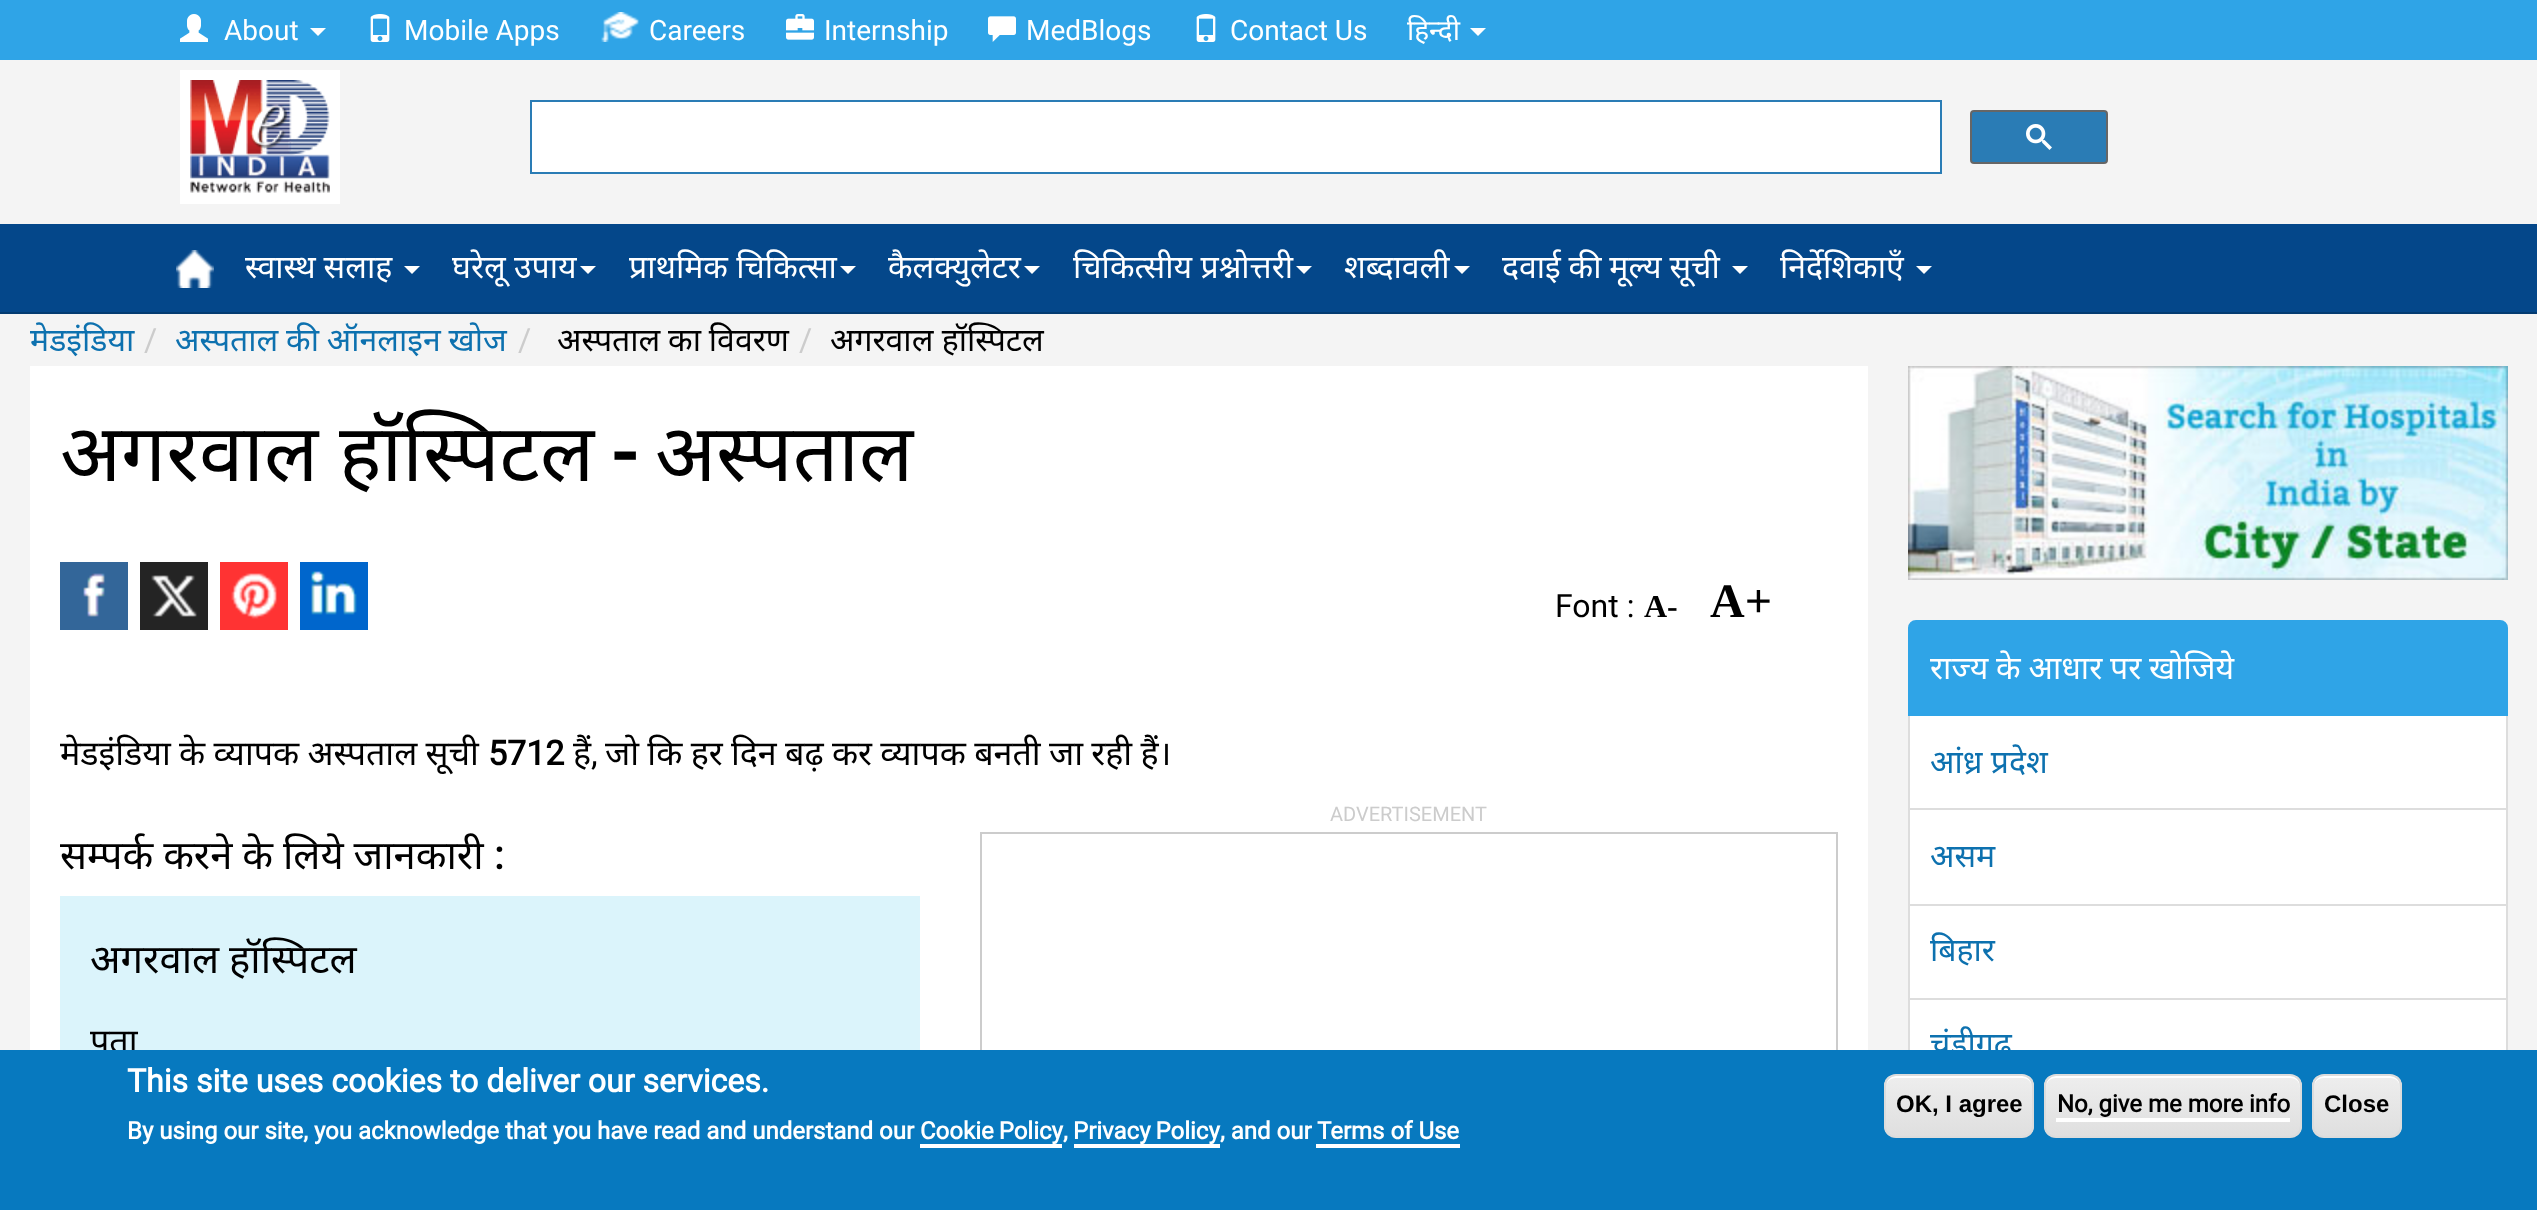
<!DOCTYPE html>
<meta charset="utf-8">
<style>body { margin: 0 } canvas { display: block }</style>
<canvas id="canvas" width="2537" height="1210"></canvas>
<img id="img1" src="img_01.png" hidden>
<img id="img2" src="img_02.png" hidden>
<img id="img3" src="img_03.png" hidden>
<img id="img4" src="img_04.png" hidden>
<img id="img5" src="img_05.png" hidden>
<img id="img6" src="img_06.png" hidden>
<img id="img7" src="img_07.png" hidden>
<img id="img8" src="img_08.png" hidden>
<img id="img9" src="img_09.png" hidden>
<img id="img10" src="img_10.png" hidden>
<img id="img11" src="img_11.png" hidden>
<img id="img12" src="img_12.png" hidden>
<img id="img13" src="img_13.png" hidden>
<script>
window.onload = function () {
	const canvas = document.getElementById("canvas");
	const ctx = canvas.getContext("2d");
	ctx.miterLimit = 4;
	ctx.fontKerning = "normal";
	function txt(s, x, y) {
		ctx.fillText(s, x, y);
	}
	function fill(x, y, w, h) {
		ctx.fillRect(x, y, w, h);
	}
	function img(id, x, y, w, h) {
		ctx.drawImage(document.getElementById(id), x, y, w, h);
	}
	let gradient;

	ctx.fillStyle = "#F4F4F4";
	fill(0, 0, 2537, 1210);
	ctx.fillStyle = "#2FA4E7";
	fill(0, 0, 2537, 60);
	img("img1", 180, 14, 28, 28);
	ctx.fillStyle = "#FFFFFF";
	ctx.beginPath();
	ctx.moveTo(310, 28);
	ctx.lineTo(326, 28);
	ctx.lineTo(318, 36);
	ctx.closePath();
	ctx.fill();
	img("img2", 370, 14, 20, 28);
	img("img3", 601, 12, 38, 30);
	img("img4", 786, 14, 28, 26);
	img("img5", 988, 16, 28, 26);
	img("img2", 1196, 14, 20, 28);
	ctx.beginPath();
	ctx.moveTo(1470, 28);
	ctx.lineTo(1486, 28);
	ctx.lineTo(1478, 36);
	ctx.closePath();
	ctx.fill();
	fill(180, 70, 160, 134);
	img("img6", 190, 80, 140, 113);
	ctx.beginPath();
	ctx.rect(531, 101, 1410, 72);
	ctx.fill();
	ctx.strokeStyle = "#2A7CB5";
	ctx.lineWidth = 2;
	ctx.stroke();
	ctx.fillStyle = "#2A7CB5";
	ctx.beginPath();
	ctx.roundRect(1971, 111, 136, 52, 3);
	ctx.fill();
	ctx.strokeStyle = "#666666";
	ctx.stroke();
	img("img7", 2026, 124, 26, 26);
	ctx.fillStyle = "#04478A";
	fill(0, 224, 2537, 88);
	ctx.fillStyle = "#033B71";
	fill(0, 312, 2537, 2);
	img("img8", 176, 250, 38, 38);
	ctx.fillStyle = "#FFFFFF";
	ctx.beginPath();
	ctx.moveTo(404, 266);
	ctx.lineTo(420, 266);
	ctx.lineTo(412, 274);
	ctx.closePath();
	ctx.fill();
	ctx.beginPath();
	ctx.moveTo(580, 266);
	ctx.lineTo(596, 266);
	ctx.lineTo(588, 274);
	ctx.closePath();
	ctx.fill();
	ctx.beginPath();
	ctx.moveTo(840, 266);
	ctx.lineTo(856, 266);
	ctx.lineTo(848, 274);
	ctx.closePath();
	ctx.fill();
	ctx.beginPath();
	ctx.moveTo(1024, 266);
	ctx.lineTo(1040, 266);
	ctx.lineTo(1032, 274);
	ctx.closePath();
	ctx.fill();
	ctx.beginPath();
	ctx.moveTo(1296, 266);
	ctx.lineTo(1312, 266);
	ctx.lineTo(1304, 274);
	ctx.closePath();
	ctx.fill();
	ctx.beginPath();
	ctx.moveTo(1454, 266);
	ctx.lineTo(1470, 266);
	ctx.lineTo(1462, 274);
	ctx.closePath();
	ctx.fill();
	ctx.beginPath();
	ctx.moveTo(1732, 266);
	ctx.lineTo(1748, 266);
	ctx.lineTo(1740, 274);
	ctx.closePath();
	ctx.fill();
	ctx.beginPath();
	ctx.moveTo(1916, 266);
	ctx.lineTo(1932, 266);
	ctx.lineTo(1924, 274);
	ctx.closePath();
	ctx.fill();
	fill(30, 366, 1838, 684);
	ctx.fillStyle = "#336699";
	fill(60, 562, 68, 68);
	img("img9", 83, 573, 22, 44);
	img("img10", 140, 562, 68, 68);
	ctx.fillStyle = "#FF3333";
	fill(220, 562, 68, 68);
	img("img11", 231, 573, 46, 46);
	ctx.fillStyle = "#0066CC";
	fill(300, 562, 68, 68);
	img("img12", 311, 571, 46, 44);
	ctx.strokeStyle = "#CCCCCC";
	ctx.strokeRect(981, 833, 856, 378);
	ctx.fillStyle = "#DBF4FB";
	fill(60, 896, 860, 154);
	img("img13", 1908, 366, 600, 214);
	ctx.fillStyle = "#FFFFFF";
	ctx.beginPath();
	ctx.rect(1909, 715, 598, 94);
	ctx.fill();
	ctx.strokeStyle = "#DDDDDD";
	ctx.stroke();
	ctx.fillStyle = "#2FA4E7";
	ctx.beginPath();
	ctx.roundRect(1909, 621, 598, 94, [7, 7, 0, 0]);
	ctx.fill();
	ctx.strokeStyle = "#2FA4E7";
	ctx.stroke();
	ctx.fillStyle = "#FFFFFF";
	ctx.beginPath();
	ctx.rect(1909, 809, 598, 96);
	ctx.fill();
	ctx.strokeStyle = "#DDDDDD";
	ctx.stroke();
	ctx.beginPath();
	ctx.rect(1909, 905, 598, 94);
	ctx.fill();
	ctx.stroke();
	fill(1910, 1000, 596, 50);
	ctx.strokeRect(1909, 999, 598, 94);
	ctx.font = "28px Roboto";
	txt("About", 224, 40);
	txt("Mobile Apps", 404, 40);
	txt("Careers", 649, 40);
	txt("Internship", 824, 40);
	txt("MedBlogs", 1026, 40);
	txt("Contact Us", 1230, 40);
	ctx.font = "28px Noto Sans";
	txt("हिन्दी", 1407, 40);
	ctx.wordSpacing = "-0.5px";
	ctx.font = "32px Noto Sans";
	txt("स्वास्थ सलाह", 245, 278);
	ctx.wordSpacing = "0px";
	txt("घरेलू उपाय", 452, 278);
	txt("प्राथमिक चिकित्सा", 629, 278);
	txt("कैलक्युलेटर", 888, 278);
	txt("चिकित्सीय प्रश्नोत्तरी", 1073, 278);
	txt("शब्दावली", 1344, 278);
	ctx.wordSpacing = "-0.5px";
	txt("दवाई की मूल्य सूची", 1502, 278);
	ctx.wordSpacing = "0px";
	txt("निर्देशिकाएँ", 1780, 278);
	ctx.fillStyle = "#0D71AF";
	txt("मेडइंडिया", 30, 351);
	ctx.font = "32px Roboto";
	ctx.fillStyle = "#CCCCCC";
	txt("/", 144, 351);
	ctx.wordSpacing = "-0.5px";
	ctx.font = "32px Noto Sans";
	ctx.fillStyle = "#0D71AF";
	txt("अस्पताल की ऑनलाइन खोज", 175, 351);
	ctx.wordSpacing = "0px";
	ctx.font = "32px Roboto";
	ctx.fillStyle = "#CCCCCC";
	txt("/", 518, 351);
	ctx.wordSpacing = "-0.5px";
	ctx.font = "32px Noto Sans";
	ctx.fillStyle = "#000000";
	txt("अस्पताल का विवरण", 557, 351);
	ctx.wordSpacing = "0px";
	ctx.font = "32px Roboto";
	ctx.fillStyle = "#CCCCCC";
	txt("/", 799, 351);
	ctx.font = "32px Noto Sans";
	ctx.fillStyle = "#000000";
	txt("अगरवाल हॉस्पिटल", 830, 351);
	ctx.font = "80px Noto Sans";
	txt("अगरवाल हॉस्पिटल", 60, 481);
	ctx.font = "bold 80px Roboto";
	txt("-", 613, 481);
	ctx.font = "80px Noto Sans";
	txt("अस्पताल", 655, 481);
	ctx.font = "32px Roboto";
	txt("Font :", 1555, 617);
	ctx.font = "bold 32px Liberation Serif";
	txt("A-", 1644, 617);
	ctx.font = "bold 48px Liberation Serif";
	txt("A+", 1710, 617);
	ctx.wordSpacing = "-0.5px";
	ctx.font = "34px Noto Sans";
	txt("मेडइंडिया के व्यापक अस्पताल सूची", 60, 765);
	ctx.wordSpacing = "0px";
	ctx.font = "bold 34px Roboto";
	txt("5712", 488, 765);
	ctx.font = "34px Noto Sans";
	txt("हैं", 573, 765);
	ctx.font = "34px Roboto";
	txt(",", 591, 765);
	ctx.wordSpacing = "-0.5px";
	ctx.font = "34px Noto Sans";
	txt("जो कि हर दिन बढ़ कर व्यापक बनती जा रही हैं।", 605, 765);
	ctx.wordSpacing = "0px";
	ctx.font = "20px Roboto";
	ctx.fillStyle = "#CCCCCC";
	txt("ADVERTISEMENT", 1330, 821);
	ctx.wordSpacing = "-0.5px";
	ctx.font = "40px Noto Sans";
	ctx.fillStyle = "#000000";
	txt("सम्पर्क करने के लिये जानकारी", 60, 869);
	ctx.wordSpacing = "0px";
	ctx.font = "bold 40px Roboto";
	txt(":", 494, 869);
	ctx.wordSpacing = "-0.5px";
	ctx.font = "40px Noto Sans";
	txt("अगरवाल हॉस्पिटल", 90, 973);
	ctx.wordSpacing = "0px";
	ctx.font = "34px Noto Sans";
	txt("पता", 90, 1053);
	ctx.wordSpacing = "-0.5px";
	ctx.font = "32px Noto Sans";
	ctx.fillStyle = "#FFFFFF";
	txt("राज्य के आधार पर खोजिये", 1930, 679);
	ctx.wordSpacing = "0px";
	ctx.fillStyle = "#0D71AF";
	txt("आंध्र प्रदेश", 1930, 773);
	txt("असम", 1930, 867);
	txt("बिहार", 1930, 961);
	txt("चंडीगढ़", 1930, 1055);
	ctx.fillStyle = "#0779BF";
	fill(0, 1050, 2537, 160);
	ctx.font = "bold 32px Roboto";
	ctx.fillStyle = "#FFFFFF";
	txt("This site uses cookies to deliver our services.", 127, 1092);
	ctx.font = "bold 24px Roboto";
	txt("By using our site, you acknowledge that you have read and understand our", 127, 1139);
	fill(920, 1144, 142, 4);
	ctx.wordSpacing = "-1px";
	txt("Cookie Policy", 920, 1139);
	ctx.wordSpacing = "0px";
	txt(",", 1063, 1139);
	fill(1074, 1144, 146, 4);
	ctx.wordSpacing = "-1px";
	txt("Privacy Policy", 1073, 1139);
	ctx.wordSpacing = "0px";
	txt(", and our", 1220, 1139);
	txt("Terms of Use", 1317, 1139);
	fill(1316, 1144, 144, 4);
	ctx.save();
	ctx.beginPath();
	ctx.roundRect(1884, 1074, 150, 64, 12);
	ctx.clip();
	gradient = ctx.createLinearGradient(1886, 1076, 1886, 1136);
	gradient.addColorStop(0.05, "#EDEDED");
	gradient.addColorStop(1, "#DFDFDF");
	ctx.fillStyle = gradient;
	fill(1884, 1076, 150, 60);
	ctx.restore();
	ctx.beginPath();
	ctx.moveTo(1896, 1078);
	ctx.lineTo(2022, 1078);
	ctx.bezierCurveTo(2028, 1078, 2032, 1082, 2032, 1088);
	ctx.bezierCurveTo(2032, 1071, 2013, 1076, 2001, 1076);
	ctx.lineTo(1917, 1076);
	ctx.bezierCurveTo(1905, 1076, 1886, 1071, 1886, 1088);
	ctx.bezierCurveTo(1886, 1082, 1890, 1078, 1896, 1078);
	ctx.closePath();
	ctx.fill();
	ctx.beginPath();
	ctx.roundRect(1885, 1075, 148, 62, 11);
	ctx.strokeStyle = "#DCDCDC";
	ctx.stroke();
	ctx.font = "bold 24px Liberation Sans";
	ctx.fillStyle = "#000000";
	txt("OK, I agree", 1896, 1112);
	ctx.save();
	ctx.beginPath();
	ctx.roundRect(2044, 1074, 258, 64, 12);
	ctx.clip();
	gradient = ctx.createLinearGradient(2046, 1076, 2046, 1136);
	gradient.addColorStop(0.05, "#EDEDED");
	gradient.addColorStop(1, "#DFDFDF");
	ctx.fillStyle = gradient;
	fill(2044, 1076, 258, 60);
	ctx.restore();
	ctx.fillStyle = "#FFFFFF";
	ctx.beginPath();
	ctx.moveTo(2056, 1078);
	ctx.lineTo(2290, 1078);
	ctx.bezierCurveTo(2296, 1078, 2300, 1082, 2300, 1088);
	ctx.lineTo(2300, 1086);
	ctx.bezierCurveTo(2300, 1080, 2296, 1076, 2290, 1076);
	ctx.lineTo(2056, 1076);
	ctx.bezierCurveTo(2050, 1076, 2046, 1080, 2046, 1086);
	ctx.lineTo(2046, 1088);
	ctx.bezierCurveTo(2046, 1082, 2050, 1078, 2056, 1078);
	ctx.closePath();
	ctx.fill();
	ctx.beginPath();
	ctx.roundRect(2045, 1075, 256, 62, 11);
	ctx.stroke();
	ctx.font = "bold 24px Roboto";
	ctx.fillStyle = "#000000";
	txt("No, give me more info", 2057, 1112);
	ctx.fillStyle = "#FFFFFF";
	fill(2056, 1118, 234, 4);
	ctx.save();
	ctx.beginPath();
	ctx.roundRect(2312, 1074, 90, 64, 12);
	ctx.clip();
	gradient = ctx.createLinearGradient(2314, 1076, 2314, 1136);
	gradient.addColorStop(0.05, "#EDEDED");
	gradient.addColorStop(1, "#DFDFDF");
	ctx.fillStyle = gradient;
	fill(2312, 1076, 90, 60);
	ctx.restore();
	ctx.beginPath();
	ctx.moveTo(2324, 1078);
	ctx.lineTo(2390, 1078);
	ctx.bezierCurveTo(2396, 1078, 2400, 1082, 2400, 1088);
	ctx.bezierCurveTo(2400, 1074, 2390, 1076, 2379, 1076);
	ctx.lineTo(2335, 1076);
	ctx.bezierCurveTo(2324, 1076, 2314, 1074, 2314, 1088);
	ctx.bezierCurveTo(2314, 1082, 2318, 1078, 2324, 1078);
	ctx.closePath();
	ctx.fill();
	ctx.beginPath();
	ctx.roundRect(2313, 1075, 88, 62, 11);
	ctx.stroke();
	ctx.font = "bold 24px Liberation Sans";
	ctx.fillStyle = "#000000";
	txt("Close", 2324, 1112);
};
</script>
